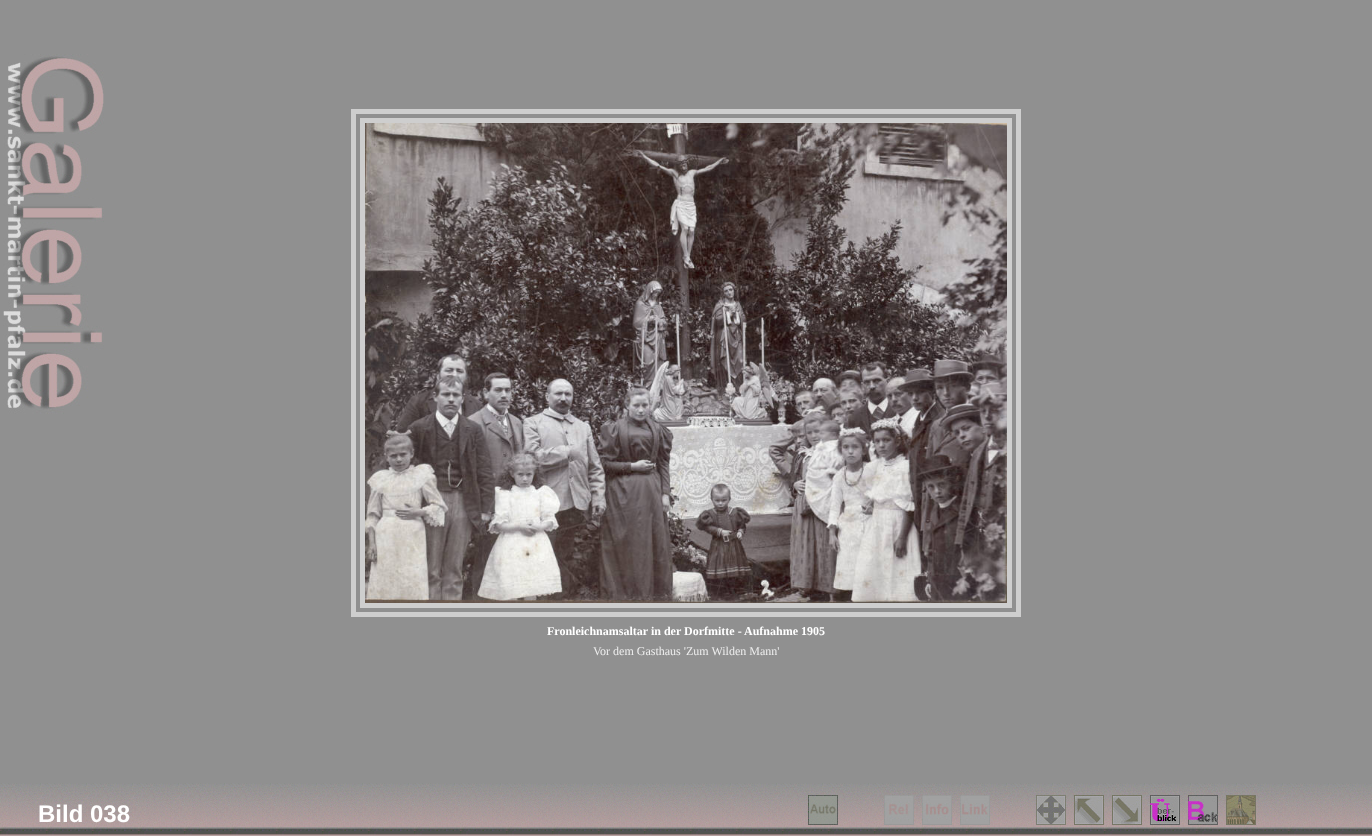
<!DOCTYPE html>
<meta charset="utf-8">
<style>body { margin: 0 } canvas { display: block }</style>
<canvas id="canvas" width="1372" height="836"></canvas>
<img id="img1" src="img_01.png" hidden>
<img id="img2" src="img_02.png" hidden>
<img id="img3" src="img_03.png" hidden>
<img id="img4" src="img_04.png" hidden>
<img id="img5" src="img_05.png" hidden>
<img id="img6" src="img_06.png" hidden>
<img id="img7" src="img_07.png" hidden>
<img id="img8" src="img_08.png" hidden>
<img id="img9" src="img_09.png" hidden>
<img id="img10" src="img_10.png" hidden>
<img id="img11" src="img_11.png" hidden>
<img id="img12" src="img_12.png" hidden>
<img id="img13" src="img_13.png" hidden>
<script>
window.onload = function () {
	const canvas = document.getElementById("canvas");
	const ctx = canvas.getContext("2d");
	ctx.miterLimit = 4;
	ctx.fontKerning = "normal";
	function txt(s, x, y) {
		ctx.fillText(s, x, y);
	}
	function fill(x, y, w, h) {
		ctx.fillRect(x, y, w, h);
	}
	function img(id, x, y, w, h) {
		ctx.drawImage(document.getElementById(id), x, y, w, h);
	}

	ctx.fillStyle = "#909090";
	fill(0, 0, 1372, 836);
	img("img1", 3, 54, 101, 360);
	ctx.strokeStyle = "#CECECE";
	ctx.lineWidth = 5;
	ctx.strokeRect(353.5, 111.5, 665, 503);
	ctx.strokeRect(362.5, 120.5, 647, 485);
	img("img2", 365, 123, 642, 480);
	img("img3", 0, 783, 1372, 53);
	img("img4", 808, 795, 30, 30);
	img("img5", 884, 795, 30, 30);
	img("img6", 922, 795, 30, 30);
	img("img7", 960, 795, 30, 30);
	img("img8", 1036, 795, 30, 30);
	img("img9", 1074, 795, 30, 30);
	img("img10", 1112, 795, 30, 30);
	img("img11", 1150, 795, 30, 30);
	img("img12", 1188, 795, 30, 30);
	img("img13", 1226, 795, 30, 30);
	ctx.font = "bold 12px Liberation Serif";
	ctx.fillStyle = "#FFFFFF";
	txt("Fronleichnamsaltar in der Dorfmitte - Aufnahme 1905", 547, 635);
	ctx.font = "12px Liberation Serif";
	ctx.fillStyle = "#EEEEEE";
	txt("Vor dem Gasthaus 'Zum Wilden Mann'", 593, 655);
	ctx.font = "bold 24px Liberation Sans";
	ctx.fillStyle = "#FFFFFF";
	txt("Bild 038", 38, 822);
};
</script>
